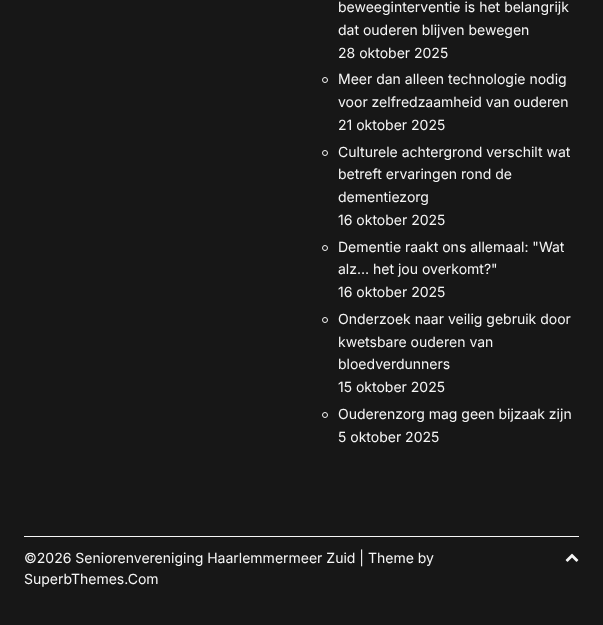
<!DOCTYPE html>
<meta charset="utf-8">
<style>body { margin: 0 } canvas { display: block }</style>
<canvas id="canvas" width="603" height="625"></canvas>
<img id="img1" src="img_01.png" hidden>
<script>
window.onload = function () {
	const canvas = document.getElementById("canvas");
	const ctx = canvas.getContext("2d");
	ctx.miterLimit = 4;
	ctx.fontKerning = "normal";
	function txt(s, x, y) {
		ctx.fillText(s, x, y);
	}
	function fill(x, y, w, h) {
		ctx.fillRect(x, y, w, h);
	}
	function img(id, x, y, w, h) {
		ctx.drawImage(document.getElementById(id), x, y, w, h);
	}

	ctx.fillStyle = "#171717";
	fill(0, 0, 603, 625);
	ctx.fillStyle = "#F6F6F6";
	fill(24, 536, 555, 1);
	ctx.beginPath();
	ctx.arc(325, 80, 2.5, 0, Math.PI * 2);
	ctx.strokeStyle = "#F6F6F6";
	ctx.stroke();
	ctx.beginPath();
	ctx.arc(325, 153, 2.5, 0, Math.PI * 2);
	ctx.stroke();
	ctx.beginPath();
	ctx.arc(325, 248, 2.5, 0, Math.PI * 2);
	ctx.stroke();
	ctx.beginPath();
	ctx.arc(325, 320, 2.5, 0, Math.PI * 2);
	ctx.stroke();
	ctx.beginPath();
	ctx.arc(325, 415, 2.5, 0, Math.PI * 2);
	ctx.stroke();
	img("img1", 565, 553, 14, 9);
	ctx.font = "14px Inter";
	txt("beweeginterventie is het belangrijk", 338, 12);
	txt("dat ouderen blijven bewegen", 338, 35);
	txt("28 oktober 2025", 338, 58);
	txt("Meer dan alleen technologie nodig", 338, 84);
	txt("voor zelfredzaamheid van ouderen", 338, 107);
	txt("21 oktober 2025", 338, 130);
	txt("Culturele achtergrond verschilt wat", 338, 157);
	txt("betreft ervaringen rond de", 338, 179);
	txt("dementiezorg", 338, 202);
	txt("16 oktober 2025", 338, 225);
	txt("Dementie raakt ons allemaal: \"Wat", 338, 252);
	txt("alz… het jou overkomt?\"", 338, 274);
	txt("16 oktober 2025", 338, 297);
	txt("Onderzoek naar veilig gebruik door", 338, 324);
	txt("kwetsbare ouderen van", 338, 347);
	txt("bloedverdunners", 338, 369);
	txt("15 oktober 2025", 338, 392);
	txt("Ouderenzorg mag geen bijzaak zijn", 338, 419);
	txt("5 oktober 2025", 338, 442);
	txt("©2026 Seniorenvereniging Haarlemmermeer Zuid | Theme by", 24, 563);
	txt("SuperbThemes.Com", 24, 584);
};
</script>
